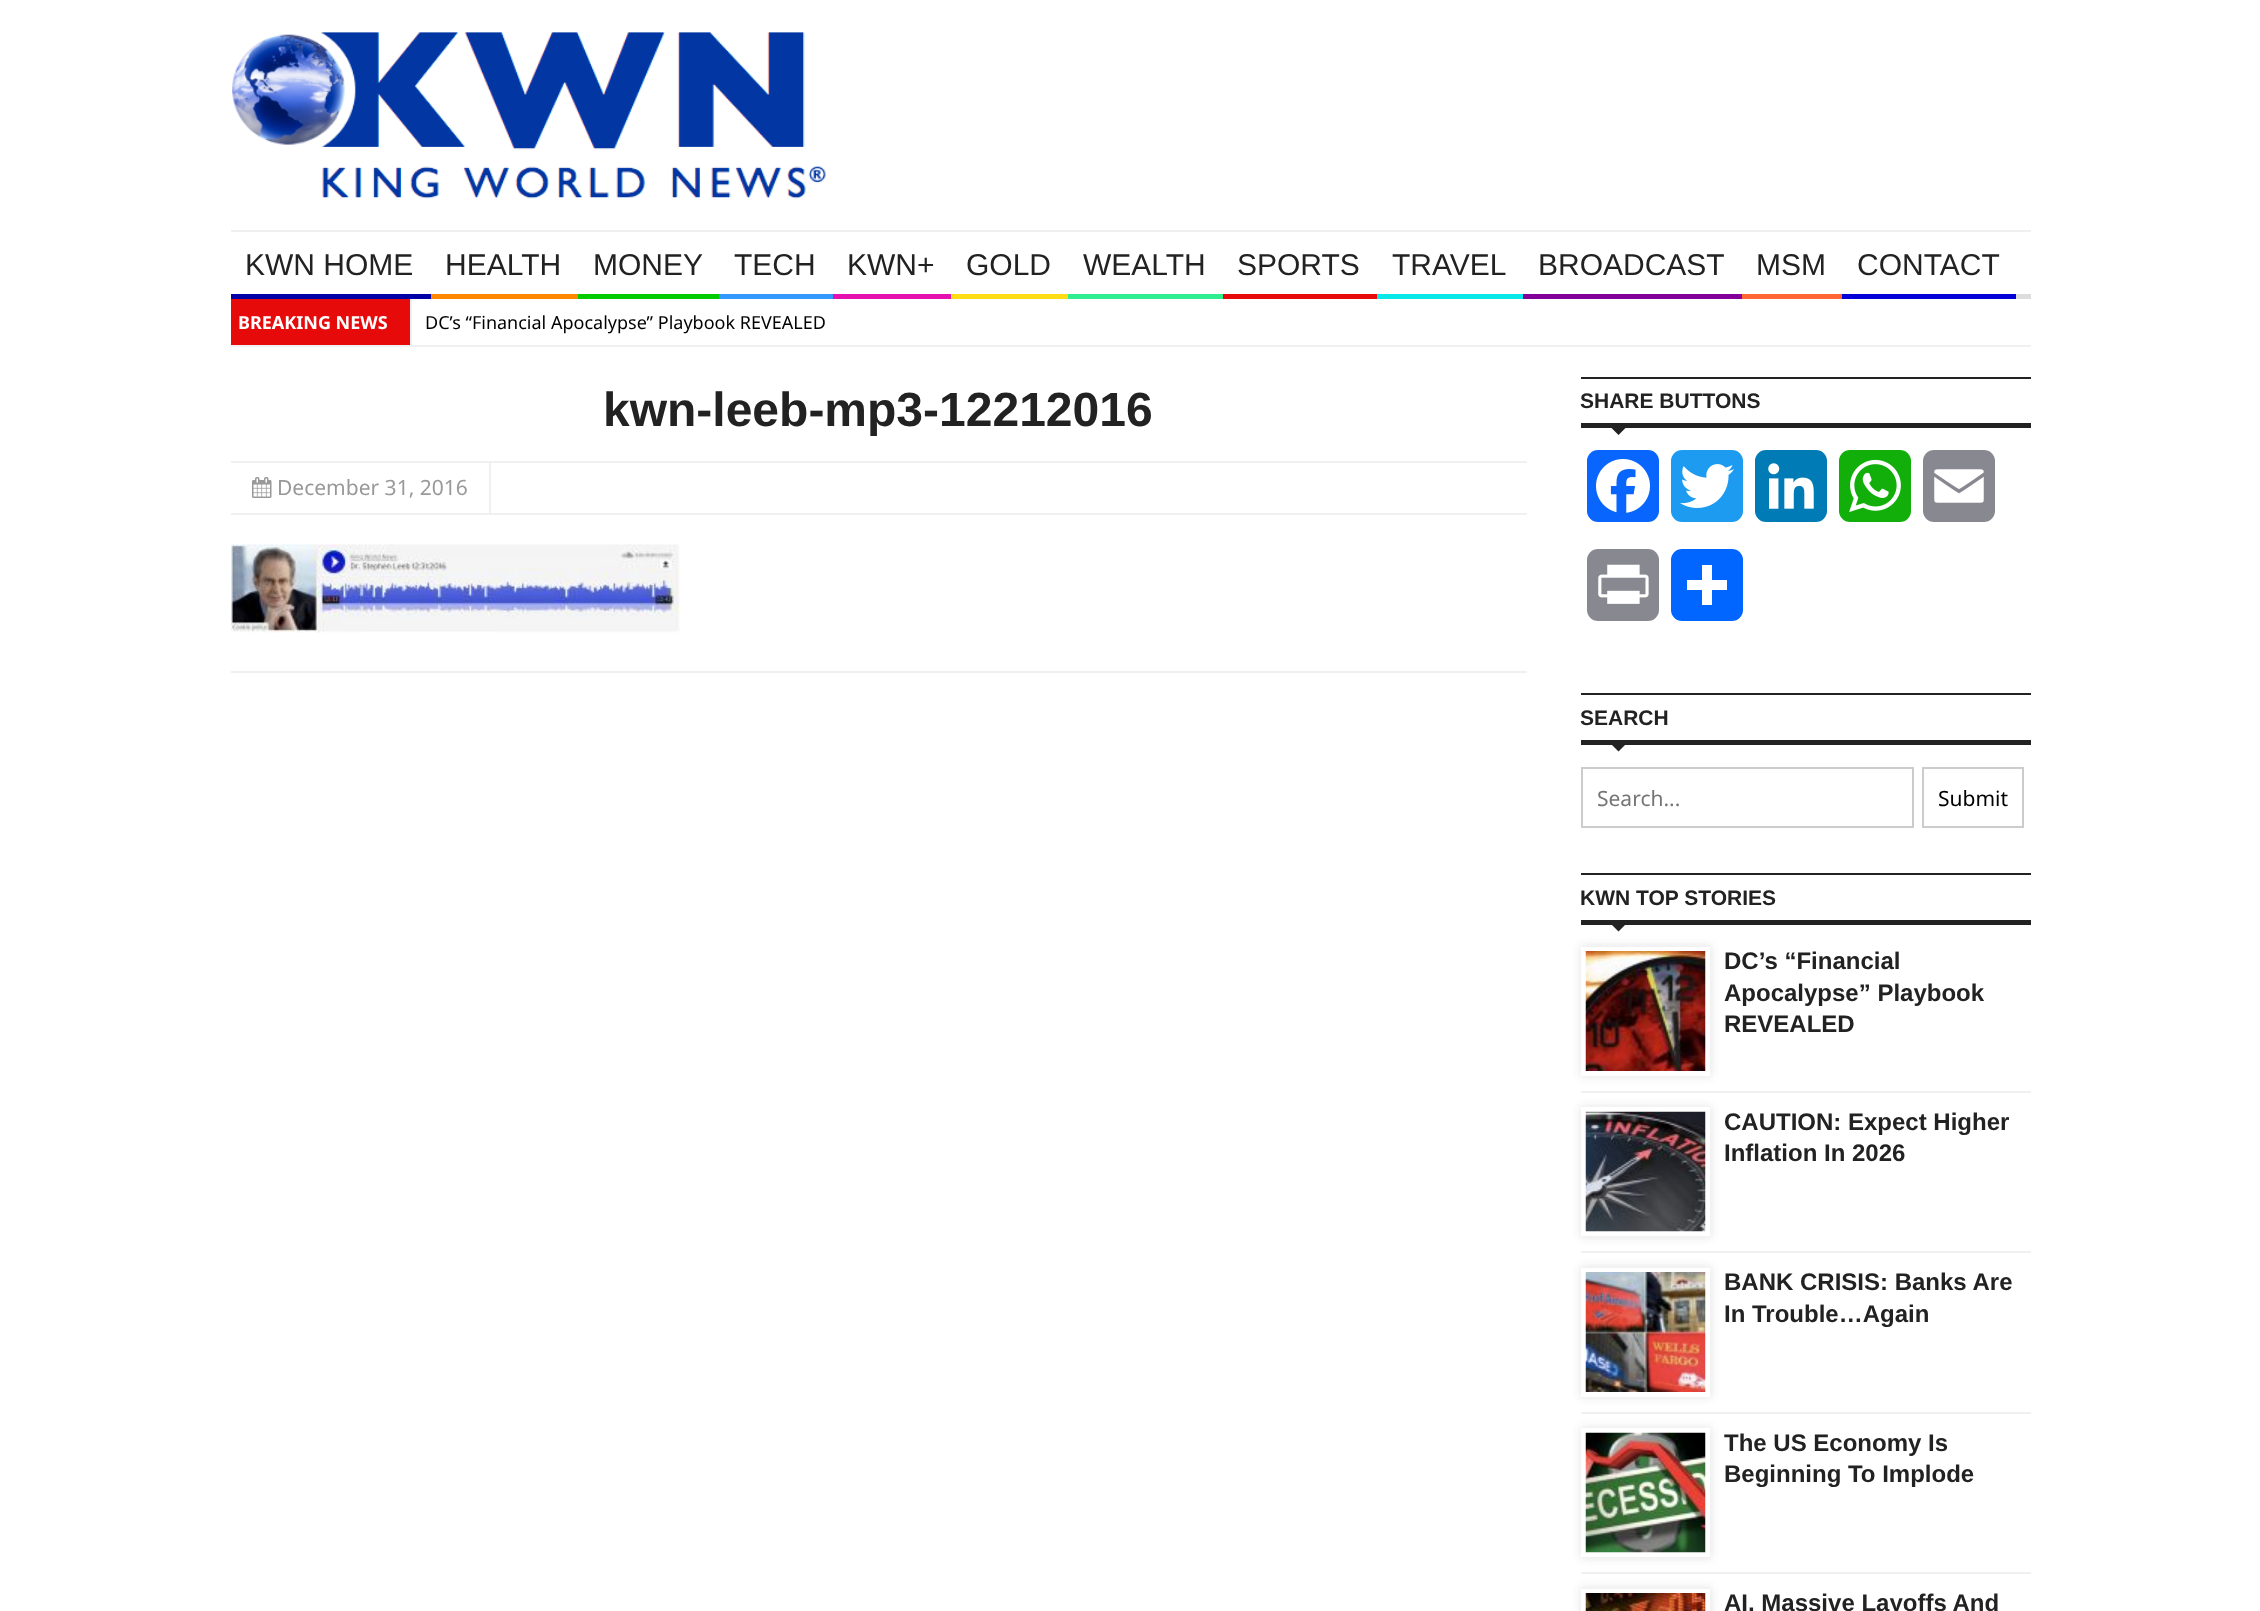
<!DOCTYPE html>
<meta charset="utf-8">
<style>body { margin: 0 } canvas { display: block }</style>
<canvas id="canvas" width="2260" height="1611"></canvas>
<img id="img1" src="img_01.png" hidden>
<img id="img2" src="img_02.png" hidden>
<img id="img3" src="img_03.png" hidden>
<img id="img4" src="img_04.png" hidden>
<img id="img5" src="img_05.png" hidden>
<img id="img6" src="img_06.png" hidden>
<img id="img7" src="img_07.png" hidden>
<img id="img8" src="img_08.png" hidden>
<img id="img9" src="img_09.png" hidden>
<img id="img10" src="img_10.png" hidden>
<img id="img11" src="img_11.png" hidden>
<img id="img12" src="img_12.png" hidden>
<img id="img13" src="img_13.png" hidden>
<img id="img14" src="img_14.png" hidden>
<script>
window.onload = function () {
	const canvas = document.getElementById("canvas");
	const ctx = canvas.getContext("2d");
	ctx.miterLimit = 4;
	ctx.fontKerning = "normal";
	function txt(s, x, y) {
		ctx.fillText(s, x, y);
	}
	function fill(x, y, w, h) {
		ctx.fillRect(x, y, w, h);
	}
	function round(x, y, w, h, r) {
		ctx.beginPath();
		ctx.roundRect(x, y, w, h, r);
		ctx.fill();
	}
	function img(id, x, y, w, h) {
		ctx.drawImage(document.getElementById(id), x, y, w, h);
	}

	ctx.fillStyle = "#FFFFFF";
	fill(0, 0, 2260, 1611);
	img("img1", 232, 32, 594, 167);
	ctx.fillStyle = "#F0F0F0";
	fill(231, 230, 1800, 2);
	ctx.fillStyle = "#DDDDDD";
	fill(2016, 294, 15, 5);
	ctx.fillStyle = "#0000A6";
	fill(231, 294, 200, 5);
	ctx.fillStyle = "#FF8800";
	fill(431, 294, 147, 5);
	ctx.fillStyle = "#00CC00";
	fill(578, 294, 141, 5);
	ctx.fillStyle = "#3399FF";
	fill(719, 294, 114, 5);
	ctx.fillStyle = "#E411AF";
	fill(833, 294, 118, 5);
	ctx.fillStyle = "#FFDC14";
	fill(951, 294, 117, 5);
	ctx.fillStyle = "#30ED8F";
	fill(1068, 294, 155, 5);
	ctx.fillStyle = "#E60A0A";
	fill(1223, 294, 154, 5);
	ctx.fillStyle = "#07E8E9";
	fill(1377, 294, 146, 5);
	ctx.fillStyle = "#820099";
	fill(1523, 294, 219, 5);
	ctx.fillStyle = "#FF6633";
	fill(1742, 294, 100, 5);
	ctx.fillStyle = "#0000D6";
	fill(1842, 294, 174, 5);
	ctx.fillStyle = "#F0F0F0";
	fill(231, 345, 1800, 2);
	ctx.fillStyle = "#E60A0A";
	fill(231, 299, 179, 46);
	ctx.fillStyle = "#F0F0F0";
	fill(410, 299, 2, 46);
	fill(231, 461, 1296, 2);
	fill(231, 513, 1296, 2);
	fill(489, 462, 2, 51);
	img("img2", 252, 477, 20, 21);
	fill(231, 671, 1296, 2);
	img("img3", 231, 544, 450, 89);
	ctx.fillStyle = "#222222";
	fill(1581, 377, 450, 2);
	fill(1581, 423, 450, 5);
	ctx.beginPath();
	ctx.moveTo(1611, 427.5);
	ctx.lineTo(1626, 427.5);
	ctx.lineTo(1618.5, 435);
	ctx.closePath();
	ctx.fill();
	ctx.fillStyle = "#0866FF";
	round(1587, 450, 72, 72, 11);
	img("img4", 1596, 459, 54, 54);
	ctx.fillStyle = "#1D9BF0";
	round(1671, 450, 72, 72, 11);
	img("img5", 1680, 464, 54, 44);
	ctx.fillStyle = "#007BB5";
	round(1755, 450, 72, 72, 11);
	img("img6", 1768, 463, 46, 46);
	ctx.fillStyle = "#12AF0A";
	round(1839, 450, 72, 72, 11);
	img("img7", 1849, 459, 52, 53);
	ctx.fillStyle = "#888990";
	round(1923, 450, 72, 72, 11);
	img("img8", 1934, 469, 50, 34);
	round(1587, 549, 72, 72, 11);
	img("img9", 1598, 564, 51, 40);
	ctx.fillStyle = "#0166FF";
	round(1671, 549, 72, 72, 11);
	ctx.fillStyle = "#FFFFFF";
	fill(1702, 565, 10, 40);
	fill(1687, 580, 40, 10);
	ctx.fillStyle = "#222222";
	fill(1581, 693, 450, 2);
	fill(1581, 740, 450, 5);
	ctx.beginPath();
	ctx.moveTo(1611, 744);
	ctx.lineTo(1626, 744);
	ctx.lineTo(1618.5, 751.5);
	ctx.closePath();
	ctx.fill();
	ctx.strokeStyle = "#CCCCCC";
	ctx.lineWidth = 2;
	ctx.strokeRect(1582, 768, 331, 59);
	ctx.strokeRect(1923, 768, 100, 59);
	fill(1581, 873, 450, 2);
	fill(1581, 920, 450, 5);
	ctx.beginPath();
	ctx.moveTo(1611, 924);
	ctx.lineTo(1626, 924);
	ctx.lineTo(1618.5, 931.5);
	ctx.closePath();
	ctx.fill();
	ctx.fillStyle = "#F0F0F0";
	fill(1581, 1091, 450, 2);
	ctx.fillStyle = "rgba(34, 34, 34, 0.1)";
	ctx.filter = "blur(4px)";
	ctx.beginPath();
	ctx.rect(1580, 945, 132, 132);
	ctx.fill();
	ctx.filter = "none";
	ctx.strokeStyle = "#FFFFFF";
	ctx.lineWidth = 5;
	ctx.strokeRect(1583.5, 949.5, 124, 124);
	img("img10", 1585, 951, 121, 120);
	ctx.fillStyle = "#F0F0F0";
	fill(1581, 1251, 450, 2);
	ctx.save();
	ctx.beginPath();
	ctx.moveTo(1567, 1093);
	ctx.lineTo(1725, 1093);
	ctx.lineTo(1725, 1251);
	ctx.lineTo(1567, 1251);
	ctx.closePath();
	ctx.moveTo(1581, 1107);
	ctx.lineTo(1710, 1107);
	ctx.lineTo(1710, 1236);
	ctx.lineTo(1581, 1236);
	ctx.closePath();
	ctx.clip("evenodd");
	ctx.fillStyle = "rgba(34, 34, 34, 0.1)";
	ctx.filter = "blur(4px)";
	ctx.beginPath();
	ctx.rect(1580, 1106, 132, 132);
	ctx.fill();
	ctx.filter = "none";
	ctx.restore();
	img("img11", 1585, 1111, 121, 121);
	fill(1581, 1412, 450, 2);
	ctx.fillStyle = "rgba(34, 34, 34, 0.1)";
	ctx.filter = "blur(4px)";
	ctx.beginPath();
	ctx.rect(1580, 1266, 132, 132);
	ctx.fill();
	ctx.filter = "none";
	ctx.strokeRect(1583.5, 1270.5, 124, 124);
	img("img12", 1585, 1272, 121, 120);
	ctx.fillStyle = "#F0F0F0";
	fill(1581, 1572, 450, 2);
	ctx.save();
	ctx.beginPath();
	ctx.moveTo(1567, 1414);
	ctx.lineTo(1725, 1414);
	ctx.lineTo(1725, 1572);
	ctx.lineTo(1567, 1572);
	ctx.closePath();
	ctx.moveTo(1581, 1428);
	ctx.lineTo(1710, 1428);
	ctx.lineTo(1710, 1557);
	ctx.lineTo(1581, 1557);
	ctx.closePath();
	ctx.clip("evenodd");
	ctx.fillStyle = "rgba(34, 34, 34, 0.1)";
	ctx.filter = "blur(4px)";
	ctx.beginPath();
	ctx.rect(1580, 1427, 132, 132);
	ctx.fill();
	ctx.filter = "none";
	ctx.restore();
	img("img13", 1585, 1432, 121, 121);
	ctx.save();
	ctx.beginPath();
	ctx.moveTo(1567, 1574);
	ctx.lineTo(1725, 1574);
	ctx.lineTo(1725, 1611);
	ctx.lineTo(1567, 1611);
	ctx.closePath();
	ctx.moveTo(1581, 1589);
	ctx.lineTo(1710, 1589);
	ctx.lineTo(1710, 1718);
	ctx.lineTo(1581, 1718);
	ctx.closePath();
	ctx.clip("evenodd");
	ctx.fillStyle = "rgba(34, 34, 34, 0.1)";
	ctx.filter = "blur(4px)";
	ctx.beginPath();
	ctx.rect(1580, 1587, 132, 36);
	ctx.fill();
	ctx.filter = "none";
	ctx.restore();
	img("img14", 1585, 1593, 121, 18);
	ctx.font = "30px Liberation Sans";
	ctx.fillStyle = "#222222";
	txt("KWN HOME", 245, 275);
	txt("HEALTH", 445, 275);
	txt("MONEY", 593, 275);
	txt("TECH", 734, 275);
	txt("KWN+", 847, 275);
	txt("GOLD", 966, 275);
	txt("WEALTH", 1083, 275);
	txt("SPORTS", 1237, 275);
	txt("TRAVEL", 1392, 275);
	txt("BROADCAST", 1538, 275);
	txt("MSM", 1756, 275);
	txt("CONTACT", 1857, 275);
	ctx.font = "bold 18px Noto Sans";
	ctx.fillStyle = "#FFFFFF";
	txt("BREAKING NEWS", 238, 329);
	ctx.font = "18px Noto Sans";
	ctx.fillStyle = "#000000";
	txt("DC’s “Financial Apocalypse” Playbook REVEALED", 425, 329);
	ctx.font = "bold 48px Liberation Sans";
	ctx.fillStyle = "#222222";
	txt("kwn-leeb-mp3-12212016", 603, 426);
	ctx.font = "21px Noto Sans";
	ctx.fillStyle = "#999999";
	txt("December 31, 2016", 277, 495);
	ctx.font = "bold 21px Liberation Sans";
	ctx.fillStyle = "#222222";
	txt("SHARE BUTTONS", 1580, 408);
	txt("SEARCH", 1580, 725);
	ctx.font = "21px Noto Sans";
	ctx.fillStyle = "#757575";
	txt("Search...", 1597, 806);
	ctx.fillStyle = "#000000";
	txt("Submit", 1938, 806);
	ctx.font = "bold 21px Liberation Sans";
	ctx.fillStyle = "#222222";
	txt("KWN TOP STORIES", 1580, 905);
	ctx.font = "bold 24px Liberation Sans";
	txt("DC’s “Financial", 1724, 969);
	txt("Apocalypse” Playbook", 1724, 1001);
	txt("REVEALED", 1724, 1032);
	txt("CAUTION: Expect Higher", 1724, 1130);
	txt("Inflation In 2026", 1724, 1161);
	txt("BANK CRISIS: Banks Are", 1724, 1290);
	txt("In Trouble…Again", 1724, 1322);
	txt("The US Economy Is", 1724, 1451);
	txt("Beginning To Implode", 1724, 1482);
	txt("AI, Massive Layoffs And", 1724, 1611);
};
</script>
